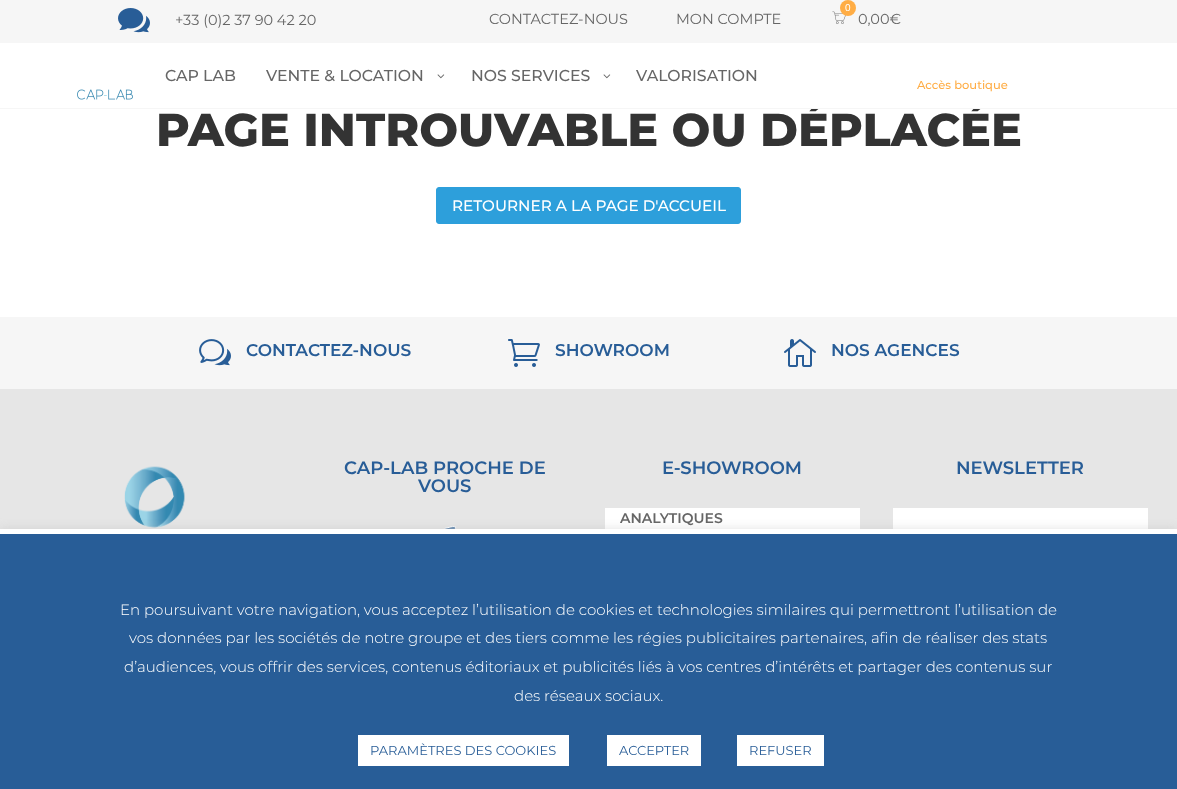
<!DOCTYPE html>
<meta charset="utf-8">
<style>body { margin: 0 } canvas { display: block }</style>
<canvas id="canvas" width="1177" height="789"></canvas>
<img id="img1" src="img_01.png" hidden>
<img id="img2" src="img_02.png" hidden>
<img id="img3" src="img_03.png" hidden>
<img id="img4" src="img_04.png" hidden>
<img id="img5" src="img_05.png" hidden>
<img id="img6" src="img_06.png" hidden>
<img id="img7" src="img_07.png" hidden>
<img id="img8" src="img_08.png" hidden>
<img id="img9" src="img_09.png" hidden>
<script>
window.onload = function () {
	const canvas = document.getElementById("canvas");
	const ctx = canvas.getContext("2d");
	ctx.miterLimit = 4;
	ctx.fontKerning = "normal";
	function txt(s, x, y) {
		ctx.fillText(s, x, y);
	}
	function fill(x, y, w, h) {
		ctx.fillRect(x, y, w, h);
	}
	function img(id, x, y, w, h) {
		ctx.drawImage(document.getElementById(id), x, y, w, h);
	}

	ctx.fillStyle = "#FFFFFF";
	fill(0, 0, 1177, 789);
	ctx.fillStyle = "#F6F6F6";
	fill(0, 0, 1177, 43);
	img("img1", 118, 8, 32, 25);
	img("img2", 832, 11, 14, 13);
	ctx.fillStyle = "#FFAD45";
	ctx.beginPath();
	ctx.arc(848, 8, 8, 0, Math.PI * 2);
	ctx.fill();
	img("img3", 437, 74, 8, 5);
	img("img3", 603, 74, 8, 5);
	img("img4", 77, 89, 56, 11);
	ctx.fillStyle = "#2D9FDB";
	ctx.beginPath();
	ctx.roundRect(436.5, 187.5, 304, 36, 2.5);
	ctx.fill();
	ctx.strokeStyle = "#2D9FDB";
	ctx.stroke();
	ctx.fillStyle = "#F6F6F6";
	fill(0, 317, 1177, 72);
	img("img5", 199, 339, 32, 27);
	img("img6", 508, 339, 32, 28);
	img("img7", 784, 339, 32, 28);
	ctx.fillStyle = "#E6E6E6";
	fill(0, 389, 1177, 140);
	img("img8", 124, 466, 61, 62);
	img("img9", 443, 526, 14, 3);
	ctx.fillStyle = "#FFFFFF";
	fill(605, 508, 255, 21);
	fill(893, 508, 255, 21);
	ctx.fillStyle = "rgba(172, 171, 171, 0.3)";
	ctx.filter = "blur(5px)";
	ctx.beginPath();
	ctx.rect(0, 528, 1177, 260);
	ctx.fill();
	ctx.filter = "none";
	ctx.fillStyle = "#285D97";
	fill(0, 534, 1177, 255);
	ctx.fillStyle = "#FFFFFF";
	fill(0, 529, 1177, 5);
	fill(358, 735, 211, 31);
	fill(607, 735, 94, 31);
	fill(737, 735, 87, 31);
	ctx.font = "14.5px Montserrat";
	ctx.fillStyle = "#666666";
	txt("+33 (0)2 37 90 42 20", 175, 25);
	txt("CONTACTEZ-NOUS", 489, 24);
	txt("MON COMPTE", 676, 24);
	ctx.font = "10px Liberation Sans";
	ctx.fillStyle = "#FFFFFF";
	txt("0", 845, 11);
	ctx.font = "14.5px Montserrat";
	ctx.fillStyle = "#666666";
	txt("0,00€", 858, 24);
	ctx.font = "500 15.75px Montserrat";
	txt("CAP LAB", 165, 81);
	txt("VENTE & LOCATION", 266, 81);
	txt("NOS SERVICES", 471, 81);
	txt("VALORISATION", 636, 81);
	ctx.font = "500 11.5px Montserrat";
	ctx.fillStyle = "#FFAD45";
	txt("Accès boutique", 917, 89);
	ctx.font = "800 46px Montserrat";
	ctx.fillStyle = "#333333";
	txt("PAGE INTROUVABLE OU DÉPLACÉE", 156, 146);
	ctx.fillStyle = "#F6F6F6";
	fill(0, 108, 1177, 1);
	ctx.fillStyle = "#FFFFFF";
	fill(811, 104, 175, 4);
	ctx.font = "500 15.25px Montserrat";
	txt("RETOURNER A LA PAGE D'ACCUEIL", 452, 211);
	ctx.font = "600 17px Montserrat";
	ctx.fillStyle = "#285D97";
	txt("CONTACTEZ-NOUS", 246, 356);
	txt("SHOWROOM", 555, 356);
	txt("NOS AGENCES", 831, 356);
	ctx.font = "600 18px Montserrat";
	txt("CAP-LAB PROCHE DE", 344, 474);
	txt("VOUS", 418, 492);
	txt("E-SHOWROOM", 662, 474);
	ctx.font = "600 14px Montserrat";
	ctx.fillStyle = "#666666";
	txt("ANALYTIQUES", 620, 523);
	ctx.font = "600 18px Montserrat";
	ctx.fillStyle = "#285D97";
	txt("NEWSLETTER", 956, 474);
	ctx.font = "300 15px Montserrat";
	ctx.fillStyle = "#FFFFFF";
	txt("En poursuivant votre navigation, vous acceptez l’utilisation de cookies et technologies similaires qui permettront l’utilisation de", 120, 615);
	txt("vos données par les sociétés de notre groupe et des tiers comme les régies publicitaires partenaires, afin de réaliser des stats", 129, 643);
	txt("d’audiences, vous offrir des services, contenus éditoriaux et publicités liés à vos centres d’intérêts et partager des contenus sur", 124, 672);
	txt("des réseaux sociaux.", 514, 701);
	ctx.font = "13px Montserrat";
	ctx.fillStyle = "#285D97";
	txt("PARAMÈTRES DES COOKIES", 370, 755);
	txt("ACCEPTER", 619, 755);
	txt("REFUSER", 749, 755);
};
</script>
